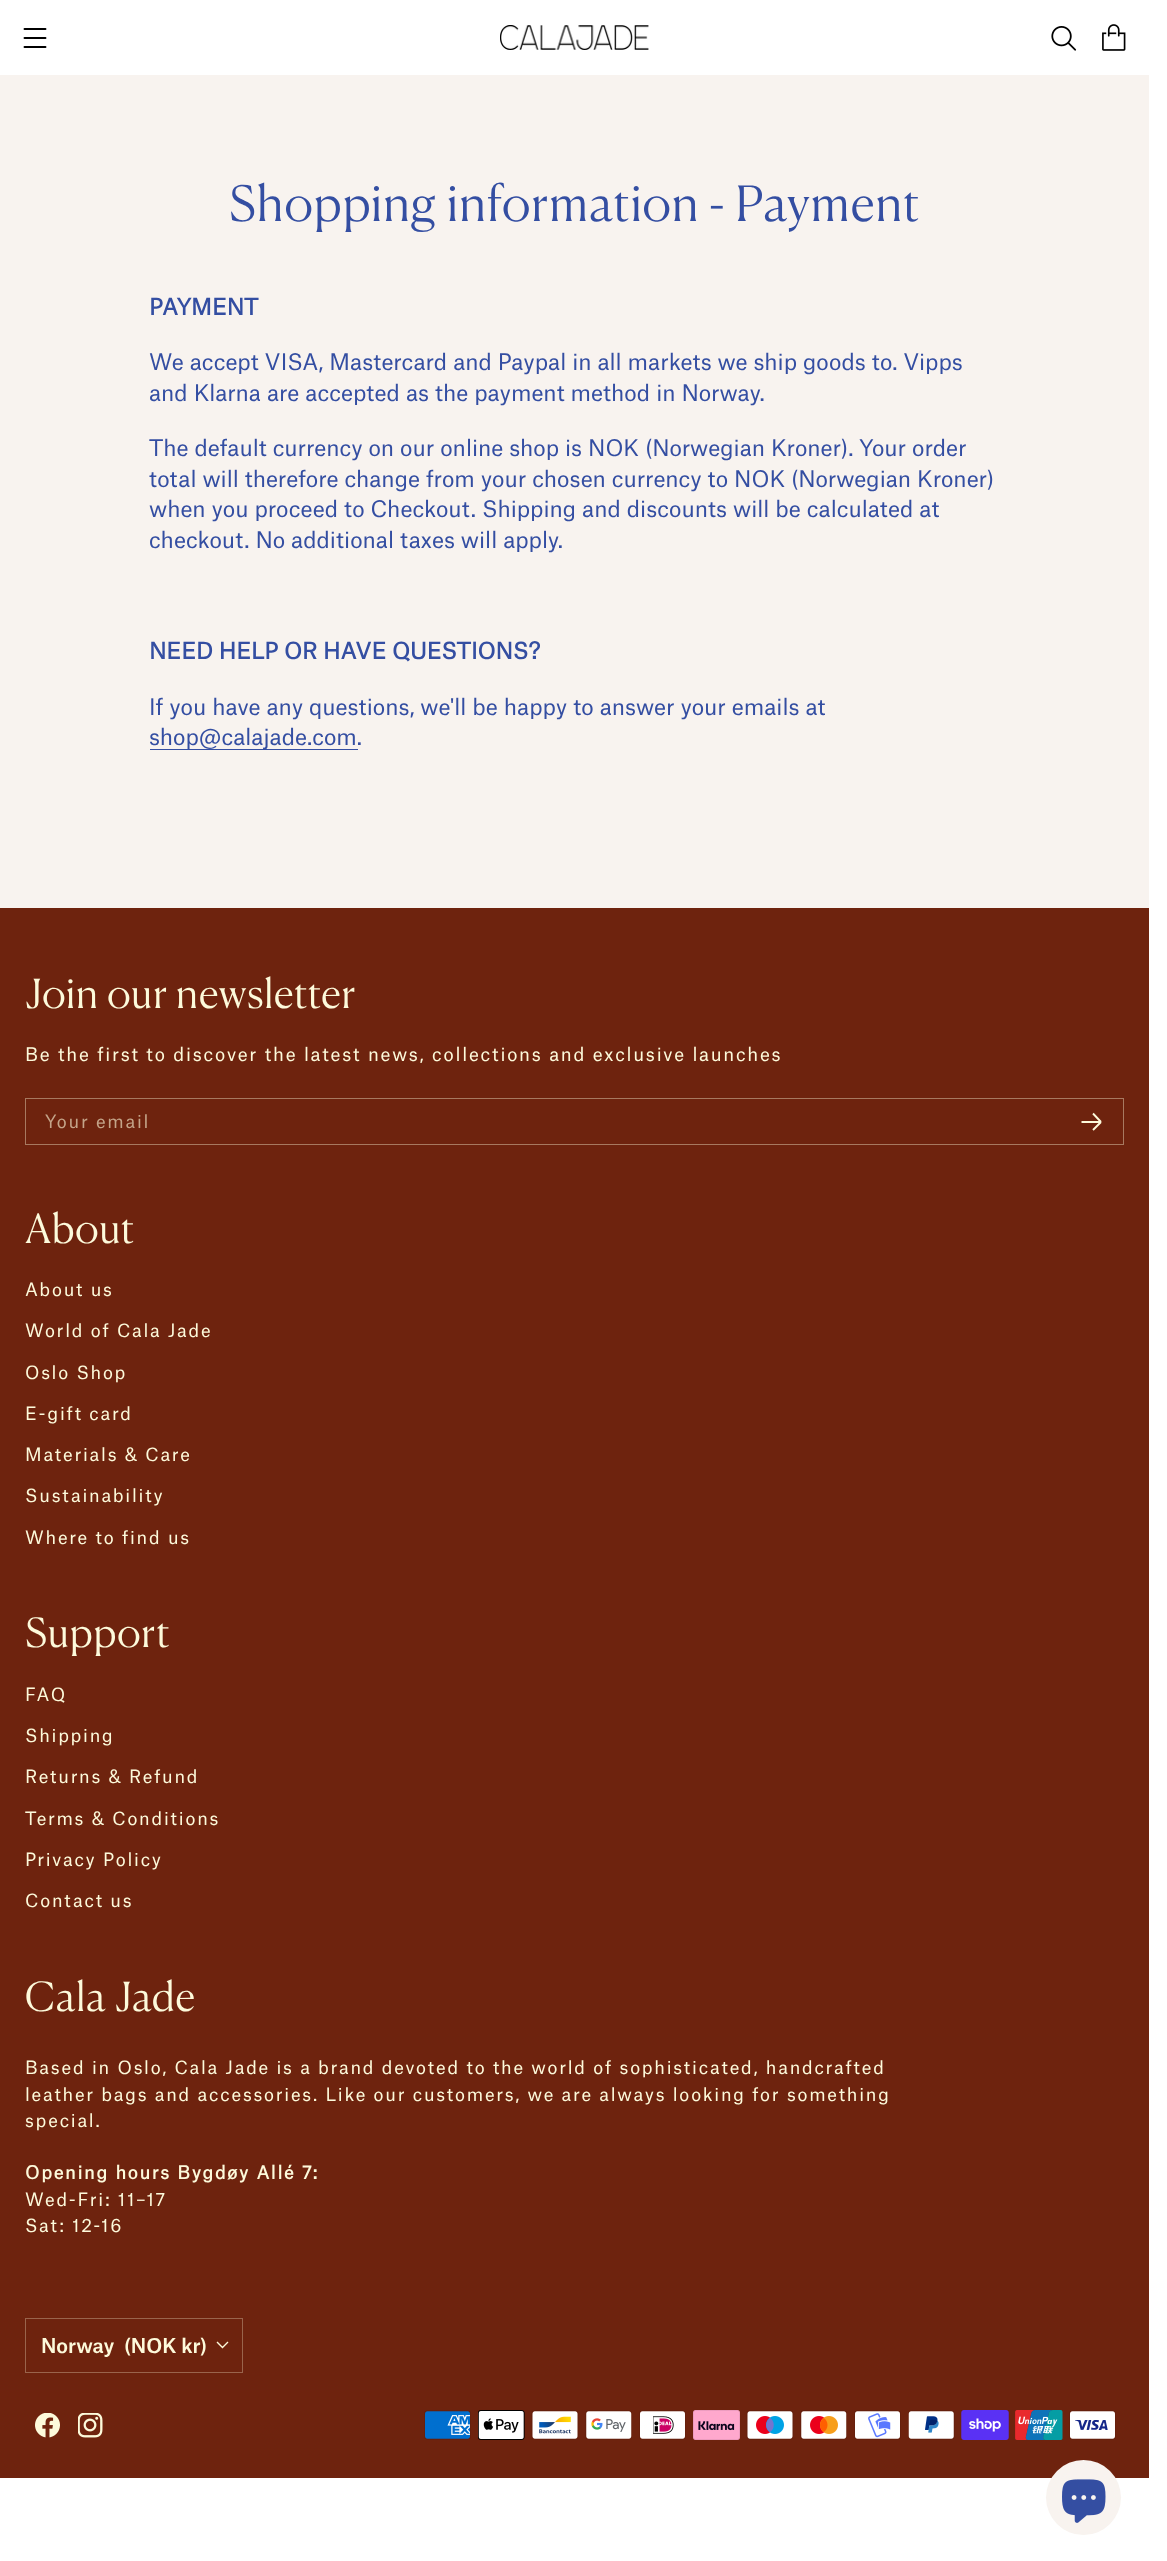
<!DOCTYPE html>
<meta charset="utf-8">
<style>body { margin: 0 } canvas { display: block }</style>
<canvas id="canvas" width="1167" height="2561"></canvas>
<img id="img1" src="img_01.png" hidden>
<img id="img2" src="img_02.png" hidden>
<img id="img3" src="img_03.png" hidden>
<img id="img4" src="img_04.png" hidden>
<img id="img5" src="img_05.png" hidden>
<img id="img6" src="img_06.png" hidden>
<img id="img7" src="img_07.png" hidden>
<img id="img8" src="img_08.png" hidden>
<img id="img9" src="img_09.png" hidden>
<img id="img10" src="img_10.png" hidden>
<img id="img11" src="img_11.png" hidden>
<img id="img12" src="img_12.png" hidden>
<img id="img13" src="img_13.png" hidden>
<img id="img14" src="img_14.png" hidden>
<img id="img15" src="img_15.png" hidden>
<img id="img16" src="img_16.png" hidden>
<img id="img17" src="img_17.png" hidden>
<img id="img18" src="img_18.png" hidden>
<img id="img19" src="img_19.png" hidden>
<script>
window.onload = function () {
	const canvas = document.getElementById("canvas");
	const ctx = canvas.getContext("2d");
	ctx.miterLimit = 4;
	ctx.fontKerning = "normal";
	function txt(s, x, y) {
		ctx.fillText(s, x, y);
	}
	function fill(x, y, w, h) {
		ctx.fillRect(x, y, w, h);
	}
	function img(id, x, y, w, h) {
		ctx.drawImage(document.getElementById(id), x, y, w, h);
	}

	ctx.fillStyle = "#FFFFFF";
	fill(0, 0, 1167, 2561);
	ctx.beginPath();
	ctx.moveTo(24.5, 38);
	ctx.lineTo(45.5, 38);
	ctx.moveTo(24.5, 47);
	ctx.lineTo(45.5, 47);
	ctx.moveTo(24.5, 29);
	ctx.lineTo(45.5, 29);
	ctx.strokeStyle = "#000000";
	ctx.lineWidth = 1.9;
	ctx.lineCap = "round";
	ctx.lineJoin = "round";
	ctx.stroke();
	img("img1", 500, 25, 149, 25);
	img("img2", 1051, 26, 26, 25);
	img("img3", 1102, 24, 24, 27);
	ctx.fillStyle = "#F8F3EF";
	fill(0, 75, 1149, 833);
	ctx.fillStyle = "#344EA2";
	fill(150, 749, 208, 1);
	ctx.fillStyle = "#6E230E";
	fill(0, 908, 1149, 1570);
	ctx.strokeStyle = "#A77960";
	ctx.lineWidth = 1;
	ctx.lineJoin = "miter";
	ctx.strokeRect(25.5, 1098.5, 1098, 46);
	ctx.beginPath();
	ctx.moveTo(1081.5, 1122);
	ctx.lineTo(1101, 1122);
	ctx.moveTo(1101, 1122);
	ctx.lineTo(1093, 1113.5);
	ctx.moveTo(1101, 1122);
	ctx.lineTo(1093, 1130);
	ctx.strokeStyle = "#FDFADB";
	ctx.lineWidth = 1.9;
	ctx.lineCap = "butt";
	ctx.stroke();
	ctx.strokeStyle = "#99644C";
	ctx.lineWidth = 1;
	ctx.strokeRect(25.5, 2318.5, 217, 54);
	ctx.beginPath();
	ctx.moveTo(217, 2342);
	ctx.lineTo(222.5, 2347.5);
	ctx.lineTo(228, 2342);
	ctx.strokeStyle = "#FDFADB";
	ctx.lineWidth = 1.4;
	ctx.stroke();
	img("img4", 35, 2413, 25, 25);
	img("img5", 78, 2413, 25, 25);
	img("img6", 424, 2410, 47, 30);
	img("img7", 478, 2410, 47, 30);
	img("img8", 531, 2410, 48, 30);
	img("img9", 585, 2410, 47, 30);
	img("img10", 639, 2410, 47, 30);
	img("img11", 693, 2410, 47, 30);
	img("img12", 746, 2410, 48, 30);
	img("img13", 800, 2410, 47, 30);
	img("img14", 854, 2410, 47, 30);
	img("img15", 908, 2410, 47, 30);
	img("img16", 961, 2410, 48, 30);
	img("img17", 1015, 2410, 48, 30);
	img("img18", 1069, 2410, 47, 30);
	ctx.fillStyle = "#F8F3EF";
	ctx.beginPath();
	ctx.arc(1083.5, 2497.5, 37.5, 0, Math.PI * 2);
	ctx.fill();
	img("img19", 1062, 2479, 44, 44);
	ctx.letterSpacing = "0.5px";
	ctx.font = "300 48.6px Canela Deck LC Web";
	ctx.fillStyle = "#344EA2";
	txt("Shopping information - Payment", 229, 221);
	ctx.letterSpacing = "0px";
	ctx.font = "bold 21.85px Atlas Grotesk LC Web";
	txt("PAYMENT", 149, 315);
	ctx.font = "21.85px Atlas Grotesk LC Web";
	txt("We accept VISA, Mastercard and Paypal in all markets we ship goods to. Vipps", 149, 370);
	txt("and Klarna are accepted as the payment method in Norway.", 149, 401);
	txt("The default currency on our online shop is NOK (Norwegian Kroner). Your order", 149, 456);
	txt("total will therefore change from your chosen currency to NOK (Norwegian Kroner)", 149, 487);
	txt("when you proceed to Checkout. Shipping and discounts will be calculated at", 149, 517);
	txt("checkout. No additional taxes will apply.", 149, 548);
	ctx.font = "bold 21.85px Atlas Grotesk LC Web";
	txt("NEED HELP OR HAVE QUESTIONS?", 149, 659);
	ctx.font = "21.85px Atlas Grotesk LC Web";
	txt("If you have any questions, we'll be happy to answer your emails at", 149, 715);
	txt("shop@calajade.com.", 149, 745);
	ctx.letterSpacing = "0.4px";
	ctx.font = "300 40px Canela Deck LC Web";
	ctx.fillStyle = "#FDFADB";
	txt("Join our newsletter", 25, 1008);
	ctx.letterSpacing = "1.75px";
	ctx.font = "17.95px Atlas Grotesk LC Web";
	txt("Be the first to discover the latest news, collections and exclusive launches", 25, 1061);
	ctx.font = "17.5px Atlas Grotesk LC Web";
	ctx.fillStyle = "#C4A489";
	txt("Your email", 45, 1128);
	ctx.letterSpacing = "0.4px";
	ctx.font = "300 40px Canela Deck LC Web";
	ctx.fillStyle = "#FDFADB";
	txt("About", 25, 1243);
	ctx.letterSpacing = "1.75px";
	ctx.font = "17.5px Atlas Grotesk LC Web";
	txt("About us", 25, 1296);
	txt("World of Cala Jade", 25, 1337);
	txt("Oslo Shop", 25, 1379);
	txt("E-gift card", 25, 1420);
	txt("Materials & Care", 25, 1461);
	txt("Sustainability", 25, 1502);
	txt("Where to find us", 25, 1544);
	ctx.letterSpacing = "0.4px";
	ctx.font = "300 40px Canela Deck LC Web";
	txt("Support", 25, 1647);
	ctx.letterSpacing = "1.75px";
	ctx.font = "17.5px Atlas Grotesk LC Web";
	txt("FAQ", 25, 1701);
	txt("Shipping", 25, 1742);
	txt("Returns & Refund", 25, 1783);
	txt("Terms & Conditions", 25, 1825);
	txt("Privacy Policy", 25, 1866);
	txt("Contact us", 25, 1907);
	ctx.letterSpacing = "0.4px";
	ctx.font = "300 40px Canela Deck LC Web";
	txt("Cala Jade", 25, 2011);
	ctx.letterSpacing = "1.75px";
	ctx.font = "17.5px Atlas Grotesk LC Web";
	txt("Based in Oslo, Cala Jade is a brand devoted to the world of sophisticated, handcrafted", 25, 2074);
	txt("leather bags and accessories. Like our customers, we are always looking for something", 25, 2101);
	txt("special.", 25, 2127);
	ctx.font = "bold 17.5px Atlas Grotesk LC Web";
	txt("Opening hours Bygdøy Allé 7:", 25, 2179);
	ctx.font = "17.5px Atlas Grotesk LC Web";
	txt("Wed-Fri: 11–17", 25, 2206);
	txt("Sat: 12-16", 25, 2232);
	ctx.letterSpacing = "0px";
	ctx.font = "500 19.5px Atlas Grotesk LC Web";
	txt("Norway", 41, 2353);
	txt("(NOK kr)", 124, 2353);
};
</script>
